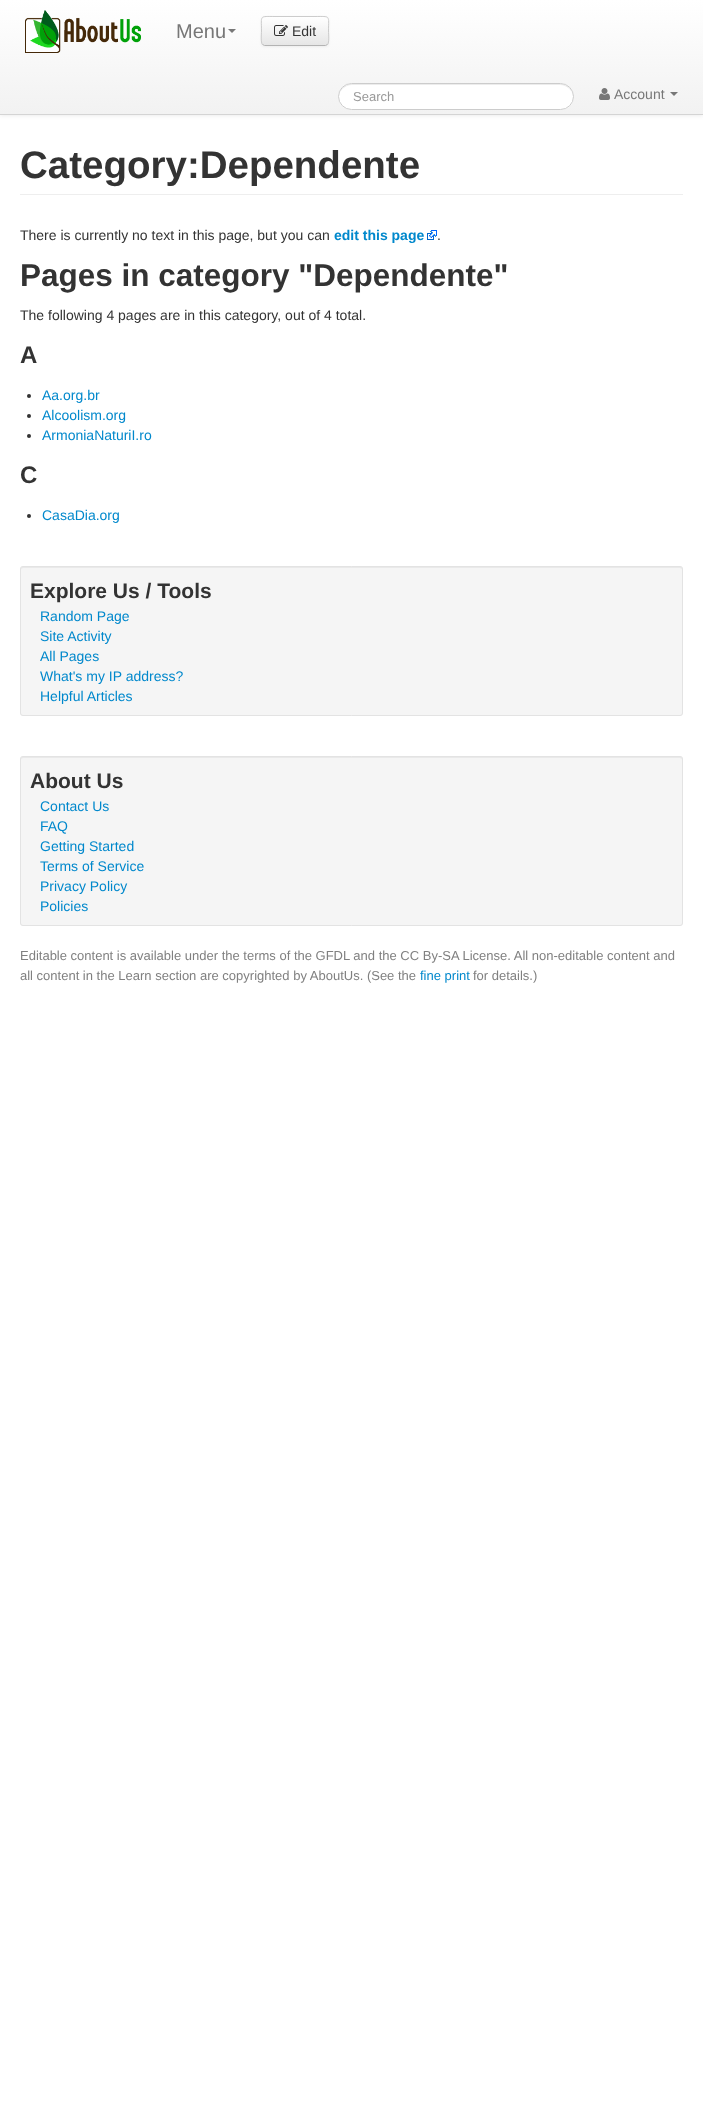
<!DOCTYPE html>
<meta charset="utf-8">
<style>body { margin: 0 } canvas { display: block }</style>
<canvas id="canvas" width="703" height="2113"></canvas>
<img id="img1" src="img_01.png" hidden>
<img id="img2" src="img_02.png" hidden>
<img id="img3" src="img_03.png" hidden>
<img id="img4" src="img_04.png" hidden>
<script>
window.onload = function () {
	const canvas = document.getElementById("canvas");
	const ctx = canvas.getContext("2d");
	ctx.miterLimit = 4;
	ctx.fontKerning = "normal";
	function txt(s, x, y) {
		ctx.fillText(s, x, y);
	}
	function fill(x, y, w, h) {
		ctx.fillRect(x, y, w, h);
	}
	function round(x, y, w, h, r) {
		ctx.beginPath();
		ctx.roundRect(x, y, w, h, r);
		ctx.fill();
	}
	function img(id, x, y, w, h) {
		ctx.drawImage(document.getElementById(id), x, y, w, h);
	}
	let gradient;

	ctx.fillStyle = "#FFFFFF";
	fill(0, 0, 703, 2113);
	ctx.fillStyle = "rgba(0, 0, 0, 0.07)";
	ctx.filter = "blur(2px)";
	ctx.beginPath();
	ctx.rect(0, 1, 703, 115);
	ctx.fill();
	ctx.filter = "none";
	gradient = ctx.createLinearGradient(352, 0, 352, 114);
	gradient.addColorStop(0, "#FFFFFF");
	gradient.addColorStop(1, "#F2F2F2");
	ctx.fillStyle = gradient;
	fill(0, 0, 703, 114);
	ctx.fillStyle = "#D4D4D4";
	fill(0, 114, 703, 1);
	img("img1", 25, 10, 116, 43);
	ctx.fillStyle = "#777777";
	ctx.beginPath();
	ctx.moveTo(228, 29);
	ctx.lineTo(236, 29);
	ctx.lineTo(232, 33);
	ctx.closePath();
	ctx.fill();
	ctx.fillStyle = "rgba(0, 0, 0, 0.05)";
	ctx.filter = "blur(1px)";
	ctx.beginPath();
	ctx.roundRect(261, 17, 68, 30, 4);
	ctx.fill();
	ctx.filter = "none";
	ctx.fillStyle = "#F5F5F5";
	round(261, 16, 68, 30, 4);
	ctx.save();
	ctx.beginPath();
	ctx.roundRect(261, 16, 68, 30, 4);
	ctx.clip();
	gradient = ctx.createLinearGradient(295, 17, 295, 45);
	gradient.addColorStop(0, "#FFFFFF");
	gradient.addColorStop(1, "#E6E6E6");
	ctx.fillStyle = gradient;
	fill(261, 17, 68, 28);
	ctx.restore();
	ctx.beginPath();
	ctx.moveTo(327.5, 44.5);
	ctx.lineTo(325.5, 45.5);
	ctx.lineTo(264.5, 45.5);
	ctx.lineTo(262.5, 44.5);
	ctx.strokeStyle = "#B3B3B3";
	ctx.stroke();
	ctx.beginPath();
	ctx.moveTo(262.5, 44.5);
	ctx.bezierCurveTo(260.5, 42.5, 261.5, 34, 261.5, 31);
	ctx.bezierCurveTo(261.5, 15, 259, 16.5, 275, 16.5);
	ctx.lineTo(315, 16.5);
	ctx.bezierCurveTo(331, 16.5, 328.5, 15, 328.5, 31);
	ctx.bezierCurveTo(328.5, 34, 329.5, 42.5, 327.5, 44.5);
	ctx.strokeStyle = "#CCCCCC";
	ctx.stroke();
	img("img2", 274, 25, 14, 11);
	ctx.fillStyle = "#FFFFFF";
	round(338, 83, 236, 27, 13.5);
	ctx.fillStyle = "#ECECEC";
	ctx.beginPath();
	ctx.moveTo(352, 85);
	ctx.lineTo(560, 85);
	ctx.bezierCurveTo(567, 85, 573, 91, 573, 97);
	ctx.bezierCurveTo(573, 90, 568, 84, 560, 84);
	ctx.lineTo(352, 84);
	ctx.bezierCurveTo(344, 84, 339, 90, 339, 97);
	ctx.bezierCurveTo(339, 91, 345, 85, 352, 85);
	ctx.closePath();
	ctx.fill();
	ctx.beginPath();
	ctx.roundRect(338.5, 83.5, 235, 26, 13);
	ctx.stroke();
	img("img3", 599, 88, 11, 12);
	ctx.fillStyle = "#777777";
	ctx.beginPath();
	ctx.moveTo(670, 92);
	ctx.lineTo(678, 92);
	ctx.lineTo(674, 96);
	ctx.closePath();
	ctx.fill();
	ctx.fillStyle = "#EEEEEE";
	fill(20, 194, 663, 1);
	img("img4", 427, 230, 10, 10);
	ctx.fillStyle = "#333333";
	ctx.beginPath();
	ctx.arc(29, 396, 2, 0, Math.PI * 2);
	ctx.fill();
	ctx.beginPath();
	ctx.arc(29, 416, 2, 0, Math.PI * 2);
	ctx.fill();
	ctx.beginPath();
	ctx.arc(29, 436, 2, 0, Math.PI * 2);
	ctx.fill();
	ctx.beginPath();
	ctx.arc(29, 516, 2, 0, Math.PI * 2);
	ctx.fill();
	ctx.fillStyle = "#F5F5F5";
	round(20, 566, 663, 150, 3);
	ctx.fillStyle = "#E9E9E9";
	ctx.beginPath();
	ctx.moveTo(23, 568);
	ctx.lineTo(680, 568);
	ctx.bezierCurveTo(681, 568, 682, 569, 682, 570);
	ctx.bezierCurveTo(682, 569, 682, 567, 680, 567);
	ctx.lineTo(23, 567);
	ctx.bezierCurveTo(21, 567, 21, 569, 21, 570);
	ctx.bezierCurveTo(21, 569, 22, 568, 23, 568);
	ctx.closePath();
	ctx.fill();
	ctx.beginPath();
	ctx.roundRect(20.5, 566.5, 662, 149, 2.5);
	ctx.strokeStyle = "#E3E3E3";
	ctx.stroke();
	ctx.fillStyle = "#F5F5F5";
	round(20, 756, 663, 170, 3);
	ctx.fillStyle = "#E9E9E9";
	ctx.beginPath();
	ctx.moveTo(23, 758);
	ctx.lineTo(680, 758);
	ctx.bezierCurveTo(681, 758, 682, 759, 682, 760);
	ctx.bezierCurveTo(682, 759, 682, 757, 680, 757);
	ctx.lineTo(23, 757);
	ctx.bezierCurveTo(21, 757, 21, 759, 21, 760);
	ctx.bezierCurveTo(21, 759, 22, 758, 23, 758);
	ctx.closePath();
	ctx.fill();
	ctx.beginPath();
	ctx.roundRect(20.5, 756.5, 662, 169, 2.5);
	ctx.stroke();
	ctx.font = "20px Liberation Sans";
	ctx.fillStyle = "#777777";
	txt("Menu", 176, 38);
	ctx.font = "14px Liberation Sans";
	ctx.fillStyle = "#333333";
	txt("Edit", 292, 36);
	ctx.font = "13px Liberation Sans";
	ctx.fillStyle = "#999999";
	txt("Search", 353, 101);
	ctx.font = "14px Liberation Sans";
	ctx.fillStyle = "#777777";
	txt("Account", 614, 99);
	ctx.font = "bold 38.5px Liberation Sans";
	ctx.fillStyle = "#333333";
	txt("Category:Dependente", 20, 178);
	ctx.font = "14px Liberation Sans";
	txt("There is currently no text in this page, but you can", 20, 240);
	ctx.font = "bold 14px Liberation Sans";
	ctx.fillStyle = "#0088CC";
	txt("edit this page", 334, 240);
	ctx.font = "14px Liberation Sans";
	ctx.fillStyle = "#333333";
	txt(".", 437, 240);
	ctx.font = "bold 31.5px Liberation Sans";
	txt("Pages in category \"Dependente\"", 20, 286);
	ctx.font = "14px Liberation Sans";
	txt("The following 4 pages are in this category, out of 4 total.", 20, 320);
	ctx.font = "bold 24px Liberation Sans";
	txt("A", 20, 363);
	ctx.font = "14px Liberation Sans";
	ctx.fillStyle = "#0088CC";
	txt("Aa.org.br", 42, 400);
	txt("Alcoolism.org", 42, 420);
	txt("ArmoniaNaturiI.ro", 42, 440);
	ctx.font = "bold 24px Liberation Sans";
	ctx.fillStyle = "#333333";
	txt("C", 20, 483);
	ctx.font = "14px Liberation Sans";
	ctx.fillStyle = "#0088CC";
	txt("CasaDia.org", 42, 520);
	ctx.font = "bold 21px Liberation Sans";
	ctx.fillStyle = "#333333";
	txt("Explore Us / Tools", 30, 598);
	ctx.font = "14px Liberation Sans";
	ctx.fillStyle = "#0088CC";
	txt("Random Page", 40, 621);
	txt("Site Activity", 40, 641);
	txt("All Pages", 40, 661);
	txt("What's my IP address?", 40, 681);
	txt("Helpful Articles", 40, 701);
	ctx.font = "bold 21px Liberation Sans";
	ctx.fillStyle = "#333333";
	txt("About Us", 30, 788);
	ctx.font = "14px Liberation Sans";
	ctx.fillStyle = "#0088CC";
	txt("Contact Us", 40, 811);
	txt("FAQ", 40, 831);
	txt("Getting Started", 40, 851);
	txt("Terms of Service", 40, 871);
	txt("Privacy Policy", 40, 891);
	txt("Policies", 40, 911);
	ctx.font = "13px Liberation Sans";
	ctx.fillStyle = "#808080";
	txt("Editable content is available under the terms of the GFDL and the CC By-SA License. All non-editable content and", 20, 960);
	txt("all content in the Learn section are copyrighted by AboutUs. (See the", 20, 980);
	ctx.fillStyle = "#0088CC";
	txt("fine print", 420, 980);
	ctx.fillStyle = "#808080";
	txt("for details.)", 473, 980);
};
</script>
